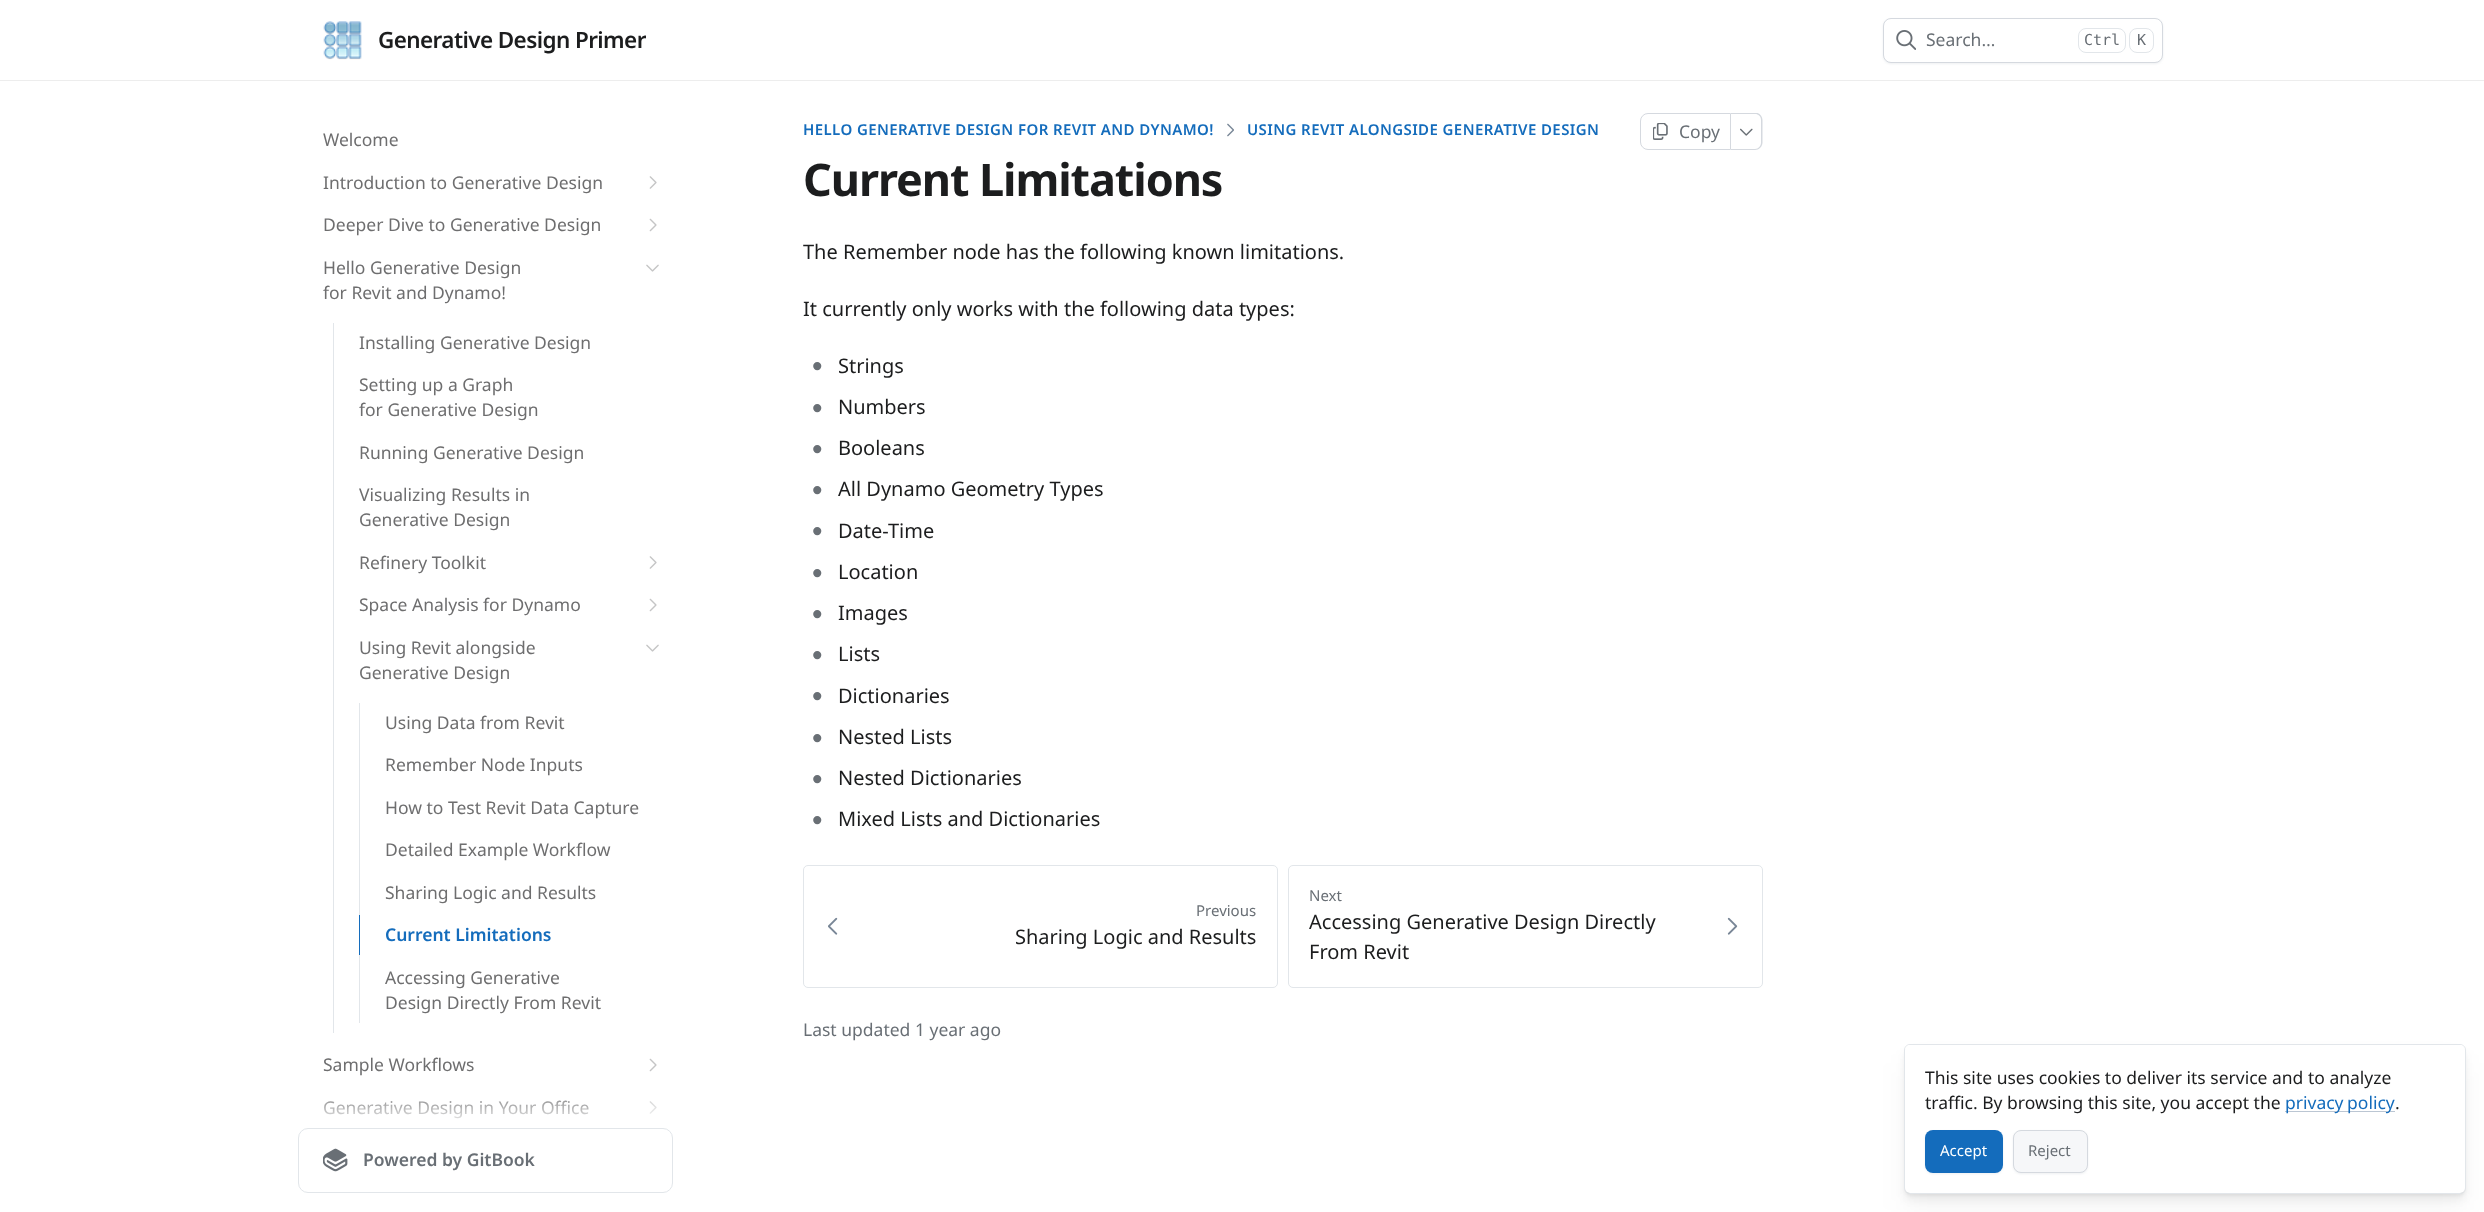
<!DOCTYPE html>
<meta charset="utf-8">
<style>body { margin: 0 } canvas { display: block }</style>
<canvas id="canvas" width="2484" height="1212"></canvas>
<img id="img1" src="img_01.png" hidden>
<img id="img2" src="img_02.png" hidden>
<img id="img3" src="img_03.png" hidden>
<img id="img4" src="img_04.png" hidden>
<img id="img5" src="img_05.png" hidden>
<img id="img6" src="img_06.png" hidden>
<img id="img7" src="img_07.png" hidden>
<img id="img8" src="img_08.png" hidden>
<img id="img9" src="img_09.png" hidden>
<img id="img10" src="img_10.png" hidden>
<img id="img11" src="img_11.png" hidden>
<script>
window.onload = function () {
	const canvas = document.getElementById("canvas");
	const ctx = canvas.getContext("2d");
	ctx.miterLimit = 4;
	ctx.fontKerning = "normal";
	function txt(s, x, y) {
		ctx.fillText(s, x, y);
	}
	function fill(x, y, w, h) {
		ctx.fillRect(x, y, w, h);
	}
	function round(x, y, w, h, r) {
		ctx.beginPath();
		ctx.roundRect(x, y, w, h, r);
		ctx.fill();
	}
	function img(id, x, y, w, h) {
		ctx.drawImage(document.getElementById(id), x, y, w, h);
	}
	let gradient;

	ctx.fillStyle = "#FFFFFF";
	fill(0, 0, 2484, 1212);
	ctx.fillStyle = "#EDEDED";
	fill(0, 80, 2484, 1);
	img("img1", 323, 21, 39, 39);
	ctx.fillStyle = "rgba(213, 217, 223, 0.4)";
	ctx.filter = "blur(1px)";
	ctx.beginPath();
	ctx.roundRect(1883, 19, 280, 45, 8);
	ctx.fill();
	ctx.filter = "none";
	ctx.fillStyle = "#FFFFFF";
	ctx.beginPath();
	ctx.roundRect(1883.5, 18.5, 279, 44, 7.5);
	ctx.fill();
	ctx.strokeStyle = "#D5D9DF";
	ctx.stroke();
	img("img2", 1896, 30, 20, 20);
	ctx.beginPath();
	ctx.roundRect(2078.5, 28.5, 47, 24, 7.5);
	ctx.strokeStyle = "#E2E6EA";
	ctx.stroke();
	ctx.beginPath();
	ctx.roundRect(2129.5, 28.5, 24, 24, 7.5);
	ctx.stroke();
	img("img3", 649, 176, 8, 13);
	img("img4", 649, 218, 8, 14);
	img("img5", 646, 264, 13, 8);
	ctx.fillStyle = "#E2E6EA";
	fill(333, 323, 1, 710);
	img("img3", 649, 556, 8, 13);
	img("img4", 649, 598, 8, 14);
	img("img5", 646, 644, 13, 8);
	fill(359, 703, 1, 320);
	ctx.fillStyle = "#146CBC";
	fill(359, 915, 1, 40);
	img("img4", 649, 1058, 8, 14);
	img("img3", 649, 1101, 8, 13);
	ctx.beginPath();
	ctx.roundRect(298.5, 1128.5, 374, 64, 9.5);
	ctx.stroke();
	img("img6", 323, 1148, 25, 24);
	img("img7", 1227, 123, 7, 14);
	ctx.beginPath();
	ctx.roundRect(1640.5, 113.5, 90, 36, [7.5, 0, 0, 7.5]);
	ctx.strokeStyle = "#D5D9DF";
	ctx.stroke();
	img("img8", 1653, 123, 15, 17);
	ctx.save();
	ctx.beginPath();
	ctx.rect(1640, 113, 123, 37);
	ctx.clip();
	ctx.fillStyle = "#D5D9DF";
	ctx.beginPath();
	ctx.moveTo(1731, 112.5);
	ctx.lineTo(1755, 112.5);
	ctx.bezierCurveTo(1759, 112.5, 1762.5, 116, 1762.5, 120);
	ctx.lineTo(1762.5, 142.5);
	ctx.bezierCurveTo(1762.5, 146.5, 1759, 150, 1755, 150);
	ctx.lineTo(1731, 150);
	ctx.closePath();
	ctx.moveTo(1731, 114);
	ctx.lineTo(1755, 114);
	ctx.bezierCurveTo(1758.5, 114, 1761, 116.5, 1761, 120);
	ctx.lineTo(1761, 142.5);
	ctx.bezierCurveTo(1761, 146, 1758.5, 149, 1755, 149);
	ctx.lineTo(1731, 149);
	ctx.closePath();
	ctx.fill("evenodd");
	ctx.restore();
	img("img9", 1740, 128, 13, 8);
	ctx.beginPath();
	ctx.roundRect(803.5, 865.5, 474, 122, 4.5);
	ctx.strokeStyle = "#E2E6EA";
	ctx.stroke();
	img("img10", 828, 917, 10, 18);
	ctx.beginPath();
	ctx.roundRect(1288.5, 865.5, 474, 122, 4.5);
	ctx.stroke();
	img("img11", 1727, 917, 11, 18);
	ctx.fillStyle = "rgba(0, 0, 0, 0.04)";
	ctx.filter = "blur(14px)";
	ctx.beginPath();
	ctx.roundRect(1905, 1063, 560, 147, 5);
	ctx.fill();
	ctx.filter = "none";
	ctx.fillStyle = "rgba(0, 0, 0, 0.05)";
	ctx.filter = "blur(4px)";
	ctx.beginPath();
	ctx.roundRect(1905, 1053, 560, 147, 5);
	ctx.fill();
	ctx.filter = "none";
	ctx.filter = "blur(1.5px)";
	ctx.beginPath();
	ctx.roundRect(1905, 1049, 560, 147, 5);
	ctx.fill();
	ctx.filter = "none";
	ctx.fillStyle = "rgba(0, 0, 0, 0.09)";
	ctx.filter = "blur(0.5px)";
	ctx.beginPath();
	ctx.roundRect(1905, 1046, 560, 148, 5);
	ctx.fill();
	ctx.filter = "none";
	ctx.beginPath();
	ctx.roundRect(1904.5, 1044.5, 561, 149, 5.5);
	ctx.stroke();
	ctx.fillStyle = "#FFFFFF";
	round(1905, 1045, 560, 148, 5);
	ctx.fillStyle = "#BBC6D3";
	fill(2285, 1111, 110, 1);
	ctx.fillStyle = "rgba(213, 217, 223, 0.4)";
	ctx.filter = "blur(1px)";
	ctx.beginPath();
	ctx.roundRect(1925, 1131, 78, 43, 8);
	ctx.fill();
	ctx.filter = "none";
	ctx.fillStyle = "#146CBC";
	round(1925, 1130, 78, 43, 8);
	ctx.fillStyle = "rgba(213, 217, 223, 0.4)";
	ctx.filter = "blur(1px)";
	ctx.beginPath();
	ctx.roundRect(2013, 1131, 75, 43, 8);
	ctx.fill();
	ctx.filter = "none";
	ctx.fillStyle = "#F6F7F9";
	ctx.beginPath();
	ctx.roundRect(2013.5, 1130.5, 74, 42, 7.5);
	ctx.fill();
	ctx.strokeStyle = "#D5D9DF";
	ctx.stroke();
	ctx.save();
	ctx.beginPath();
	ctx.rect(378, 26, 268, 28);
	ctx.clip();
	ctx.letterSpacing = "-0.6px";
	ctx.font = "600 22.5px Noto Sans";
	ctx.fillStyle = "#1C1D1E";
	txt("Generative Design Primer", 378, 48);
	ctx.restore();
	ctx.font = "17.5px Noto Sans";
	ctx.fillStyle = "#696F75";
	txt("Search…", 1926, 46);
	ctx.font = "15px DejaVu Sans Mono";
	txt("Ctrl", 2084, 45);
	txt("K", 2137, 45);
	ctx.font = "17.5px Noto Sans";
	ctx.fillStyle = "#6E6E6F";
	txt("Welcome", 323, 146);
	txt("Introduction to Generative Design", 323, 189);
	txt("Deeper Dive to Generative Design", 323, 231);
	txt("Hello Generative Design", 323, 274);
	txt("for Revit and Dynamo!", 323, 299);
	txt("Installing Generative Design", 359, 349);
	txt("Setting up a Graph", 359, 391);
	txt("for Generative Design", 359, 416);
	txt("Running Generative Design", 359, 459);
	txt("Visualizing Results in", 359, 501);
	txt("Generative Design", 359, 526);
	txt("Refinery Toolkit", 359, 569);
	txt("Space Analysis for Dynamo", 359, 611);
	txt("Using Revit alongside", 359, 654);
	txt("Generative Design", 359, 679);
	txt("Using Data from Revit", 385, 729);
	txt("Remember Node Inputs", 385, 771);
	txt("How to Test Revit Data Capture", 385, 814);
	txt("Detailed Example Workflow", 385, 856);
	txt("Sharing Logic and Results", 385, 899);
	ctx.font = "600 17.5px Noto Sans";
	ctx.fillStyle = "#146CBC";
	txt("Current Limitations", 385, 941);
	ctx.font = "17.5px Noto Sans";
	ctx.fillStyle = "#6E6E6F";
	txt("Accessing Generative", 385, 984);
	txt("Design Directly From Revit", 385, 1009);
	txt("Sample Workflows", 323, 1071);
	txt("Generative Design in Your Office", 323, 1114);
	gradient = ctx.createLinearGradient(485, 1088, 485, 1128);
	gradient.addColorStop(0, "rgba(255, 255, 255, 0)");
	gradient.addColorStop(1, "#FFFFFF");
	ctx.fillStyle = gradient;
	fill(323, 1100, 334, 19);
	ctx.font = "600 17.5px Noto Sans";
	ctx.fillStyle = "#696F75";
	txt("Powered by GitBook", 363, 1166);
	ctx.letterSpacing = "0.4px";
	ctx.font = "600 15px Noto Sans";
	ctx.fillStyle = "#146CBC";
	txt("HELLO GENERATIVE DESIGN FOR REVIT AND DYNAMO!", 803, 135);
	txt("USING REVIT ALONGSIDE GENERATIVE DESIGN", 1247, 135);
	ctx.letterSpacing = "0px";
	ctx.font = "17.5px Noto Sans";
	ctx.fillStyle = "#696F75";
	txt("Copy", 1679, 138);
	ctx.letterSpacing = "-1.1px";
	ctx.font = "bold 45px Noto Sans";
	ctx.fillStyle = "#1C1D1E";
	txt("Current Limitations", 803, 196);
	ctx.letterSpacing = "0px";
	ctx.font = "20px Noto Sans";
	txt("The Remember node has the following known limitations.", 803, 259);
	txt("It currently only works with the following data types:", 803, 316);
	ctx.font = "30px Liberation Sans";
	ctx.fillStyle = "#696F75";
	txt("•", 812, 376);
	ctx.font = "20px Noto Sans";
	ctx.fillStyle = "#1C1D1E";
	txt("Strings", 838, 373);
	ctx.font = "30px Liberation Sans";
	ctx.fillStyle = "#696F75";
	txt("•", 812, 418);
	ctx.font = "20px Noto Sans";
	ctx.fillStyle = "#1C1D1E";
	txt("Numbers", 838, 414);
	ctx.font = "30px Liberation Sans";
	ctx.fillStyle = "#696F75";
	txt("•", 812, 459);
	ctx.font = "20px Noto Sans";
	ctx.fillStyle = "#1C1D1E";
	txt("Booleans", 838, 455);
	ctx.font = "30px Liberation Sans";
	ctx.fillStyle = "#696F75";
	txt("•", 812, 500);
	ctx.font = "20px Noto Sans";
	ctx.fillStyle = "#1C1D1E";
	txt("All Dynamo Geometry Types", 838, 496);
	ctx.font = "30px Liberation Sans";
	ctx.fillStyle = "#696F75";
	txt("•", 812, 541);
	ctx.font = "20px Noto Sans";
	ctx.fillStyle = "#1C1D1E";
	txt("Date-Time", 838, 538);
	ctx.font = "30px Liberation Sans";
	ctx.fillStyle = "#696F75";
	txt("•", 812, 583);
	ctx.font = "20px Noto Sans";
	ctx.fillStyle = "#1C1D1E";
	txt("Location", 838, 579);
	ctx.font = "30px Liberation Sans";
	ctx.fillStyle = "#696F75";
	txt("•", 812, 624);
	ctx.font = "20px Noto Sans";
	ctx.fillStyle = "#1C1D1E";
	txt("Images", 838, 620);
	ctx.font = "30px Liberation Sans";
	ctx.fillStyle = "#696F75";
	txt("•", 812, 665);
	ctx.font = "20px Noto Sans";
	ctx.fillStyle = "#1C1D1E";
	txt("Lists", 838, 661);
	ctx.font = "30px Liberation Sans";
	ctx.fillStyle = "#696F75";
	txt("•", 812, 706);
	ctx.font = "20px Noto Sans";
	ctx.fillStyle = "#1C1D1E";
	txt("Dictionaries", 838, 703);
	ctx.font = "30px Liberation Sans";
	ctx.fillStyle = "#696F75";
	txt("•", 812, 748);
	ctx.font = "20px Noto Sans";
	ctx.fillStyle = "#1C1D1E";
	txt("Nested Lists", 838, 744);
	ctx.font = "30px Liberation Sans";
	ctx.fillStyle = "#696F75";
	txt("•", 812, 789);
	ctx.font = "20px Noto Sans";
	ctx.fillStyle = "#1C1D1E";
	txt("Nested Dictionaries", 838, 785);
	ctx.font = "30px Liberation Sans";
	ctx.fillStyle = "#696F75";
	txt("•", 812, 830);
	ctx.font = "20px Noto Sans";
	ctx.fillStyle = "#1C1D1E";
	txt("Mixed Lists and Dictionaries", 838, 826);
	ctx.font = "15px Noto Sans";
	ctx.fillStyle = "#696F75";
	txt("Previous", 1196, 916);
	ctx.font = "20px Noto Sans";
	ctx.fillStyle = "#1C1D1E";
	txt("Sharing Logic and Results", 1015, 944);
	ctx.font = "15px Noto Sans";
	ctx.fillStyle = "#696F75";
	txt("Next", 1309, 901);
	ctx.font = "20px Noto Sans";
	ctx.fillStyle = "#1C1D1E";
	txt("Accessing Generative Design Directly", 1309, 929);
	txt("From Revit", 1309, 959);
	ctx.font = "17.5px Noto Sans";
	ctx.fillStyle = "#696F75";
	txt("Last updated 1 year ago", 803, 1036);
	ctx.fillStyle = "#1C1D1E";
	txt("This site uses cookies to deliver its service and to analyze", 1925, 1084);
	txt("traffic. By browsing this site, you accept the", 1925, 1109);
	ctx.wordSpacing = "-1px";
	ctx.fillStyle = "#146CBC";
	txt("privacy policy", 2285, 1109);
	ctx.wordSpacing = "0px";
	ctx.fillStyle = "#1C1D1E";
	txt(".", 2395, 1109);
	ctx.font = "15px Noto Sans";
	ctx.fillStyle = "#FFFFFF";
	txt("Accept", 1940, 1156);
	ctx.fillStyle = "#696F75";
	txt("Reject", 2028, 1156);
};
</script>
